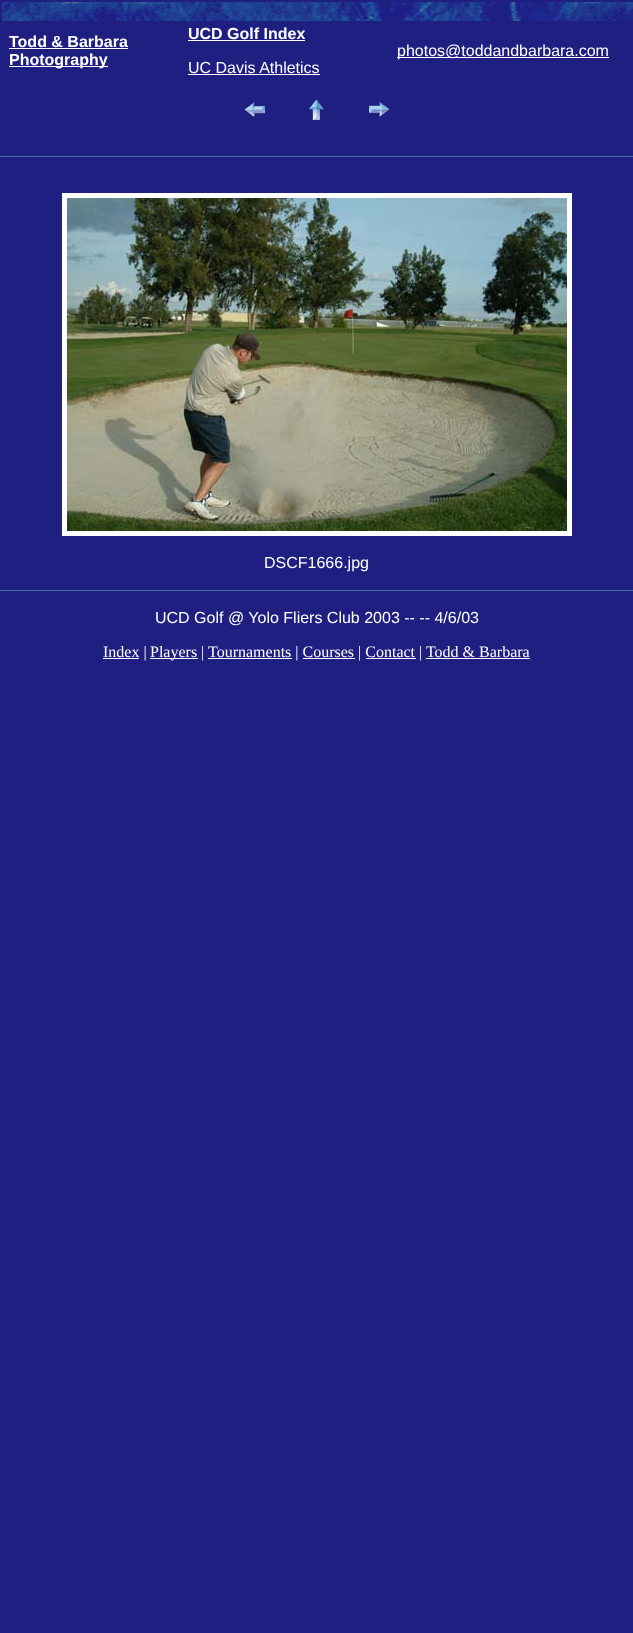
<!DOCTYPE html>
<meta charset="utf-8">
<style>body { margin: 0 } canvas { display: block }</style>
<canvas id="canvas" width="633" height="1633"></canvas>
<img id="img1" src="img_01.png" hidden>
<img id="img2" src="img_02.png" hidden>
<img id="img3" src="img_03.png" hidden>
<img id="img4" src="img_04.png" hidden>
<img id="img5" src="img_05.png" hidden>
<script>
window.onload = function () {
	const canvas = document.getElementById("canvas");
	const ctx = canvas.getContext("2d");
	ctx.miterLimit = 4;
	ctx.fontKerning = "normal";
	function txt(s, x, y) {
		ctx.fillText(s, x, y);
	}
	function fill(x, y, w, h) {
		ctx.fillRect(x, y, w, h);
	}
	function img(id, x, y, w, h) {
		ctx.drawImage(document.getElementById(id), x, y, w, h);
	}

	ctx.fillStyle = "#1F1F82";
	fill(0, 0, 633, 1633);
	img("img1", 2, 2, 631, 19);
	ctx.fillStyle = "#FFFFFF";
	fill(9, 48, 119, 1);
	fill(9, 66, 99, 1);
	fill(188, 40, 117, 1);
	fill(188, 74, 132, 1);
	fill(397, 57, 212, 1);
	img("img2", 244, 102, 21, 15);
	img("img3", 309, 99, 15, 21);
	img("img4", 369, 102, 21, 15);
	ctx.fillStyle = "#496D9B";
	fill(0, 156, 633, 1);
	ctx.strokeStyle = "#FFFFFF";
	ctx.lineWidth = 5;
	ctx.strokeRect(64.5, 195.5, 505, 338);
	img("img5", 67, 198, 500, 333);
	fill(0, 590, 633, 1);
	ctx.fillStyle = "#FFFFFF";
	fill(103, 658, 36, 1);
	fill(150, 658, 48, 1);
	fill(208, 658, 84, 1);
	fill(303, 658, 52, 1);
	fill(366, 658, 50, 1);
	fill(426, 658, 104, 1);
	ctx.font = "bold 16px Liberation Sans";
	txt("Todd & Barbara", 9, 47);
	txt("Photography", 9, 65);
	txt("UCD Golf Index", 188, 39);
	ctx.font = "16px Liberation Sans";
	txt("UC Davis Athletics", 188, 73);
	txt("photos@toddandbarbara.com", 397, 56);
	txt("DSCF1666.jpg", 264, 568);
	txt("UCD Golf @ Yolo Fliers Club 2003 -- -- 4/6/03", 155, 623);
	ctx.font = "16px Liberation Serif";
	txt("Index |", 103, 657);
	txt("Players | Tournaments | Courses | Contact | Todd & Barbara", 150, 657);
};
</script>
